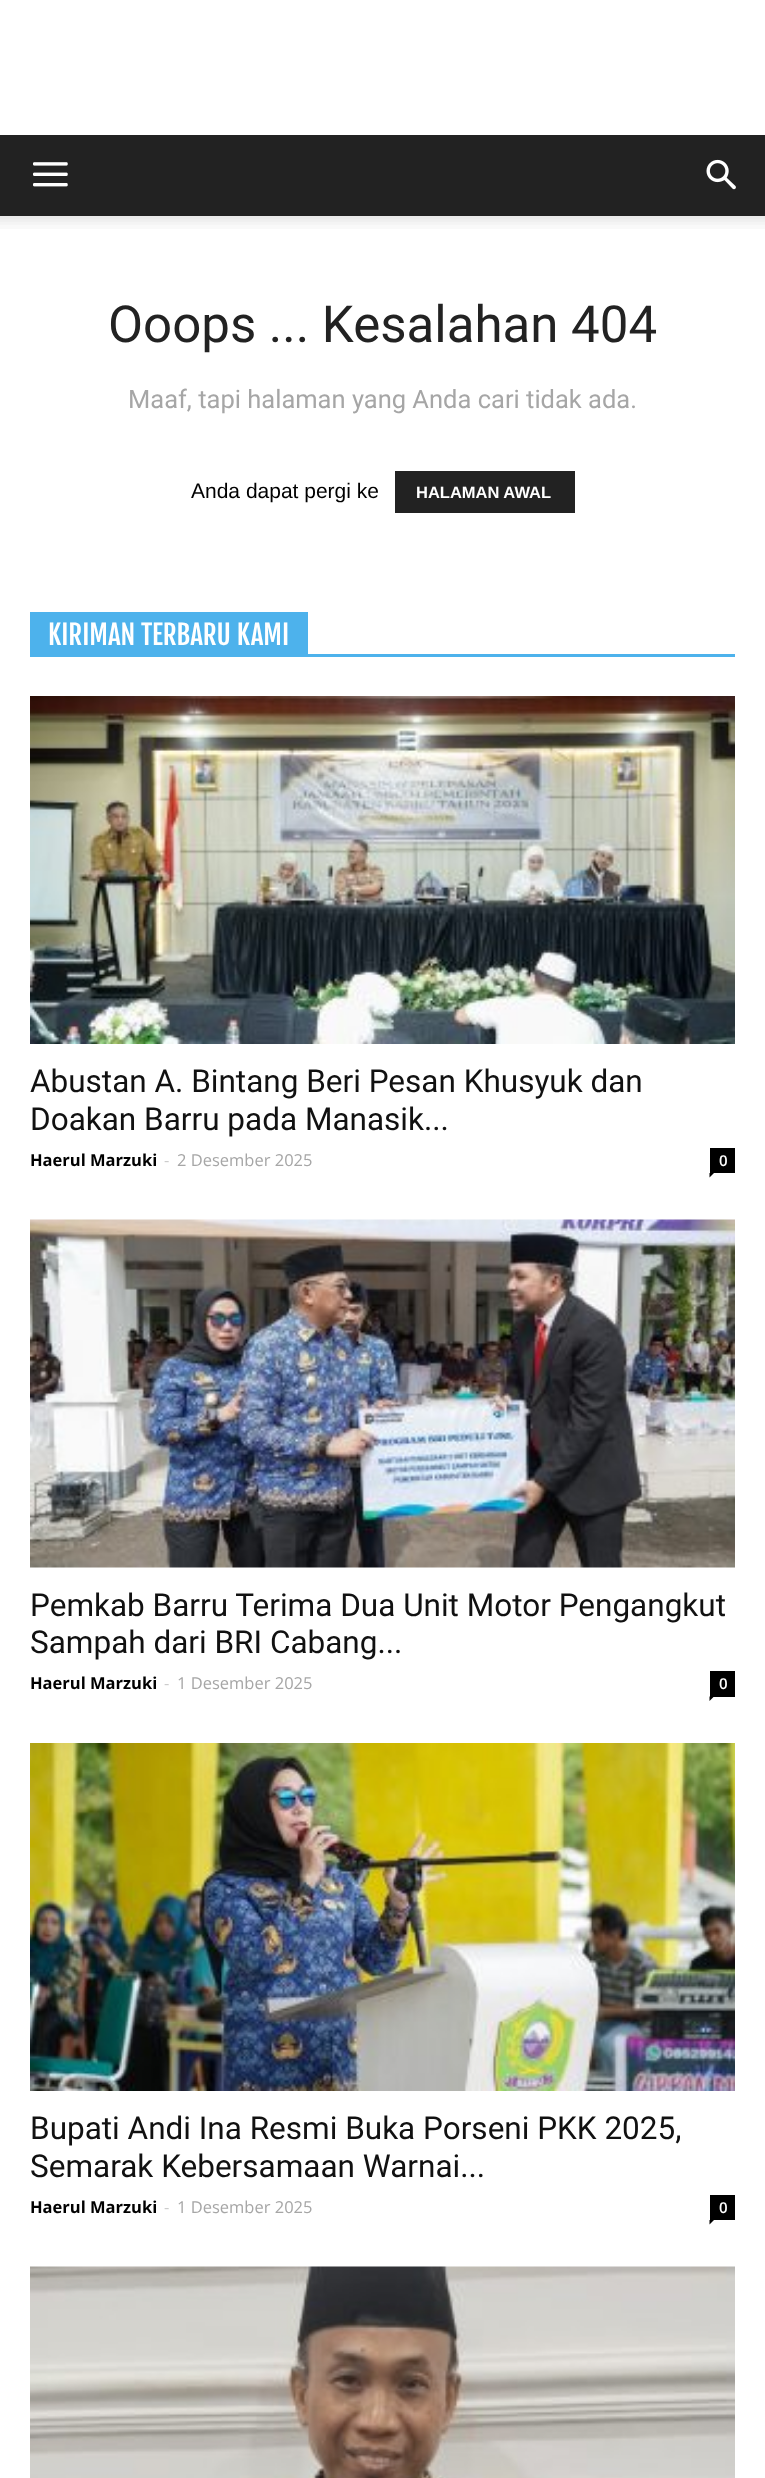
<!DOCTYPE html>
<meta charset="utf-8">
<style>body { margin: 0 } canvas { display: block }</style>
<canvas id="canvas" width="765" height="2478"></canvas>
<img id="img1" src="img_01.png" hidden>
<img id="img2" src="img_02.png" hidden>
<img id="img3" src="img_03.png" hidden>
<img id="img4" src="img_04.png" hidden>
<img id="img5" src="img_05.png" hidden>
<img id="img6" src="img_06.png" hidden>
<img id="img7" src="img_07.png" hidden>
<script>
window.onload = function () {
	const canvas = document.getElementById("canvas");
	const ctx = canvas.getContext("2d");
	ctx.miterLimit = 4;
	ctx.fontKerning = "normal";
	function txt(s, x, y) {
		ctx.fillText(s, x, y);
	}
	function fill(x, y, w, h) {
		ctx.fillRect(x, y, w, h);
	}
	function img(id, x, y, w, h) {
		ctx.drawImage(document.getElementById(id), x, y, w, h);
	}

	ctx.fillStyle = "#FFFFFF";
	fill(0, 0, 765, 2478);
	ctx.fillStyle = "#222222";
	fill(0, 135, 765, 81);
	img("img1", 33, 162, 35, 25);
	img("img2", 706, 159, 30, 31);
	img("img3", 0, 216, 765, 13);
	fill(395, 471, 180, 42);
	ctx.fillStyle = "#4DB2EC";
	fill(30, 654, 705, 3);
	fill(30, 612, 278, 42);
	img("img4", 30, 696, 705, 348);
	ctx.fillStyle = "#000000";
	fill(710, 1148, 25, 25);
	ctx.beginPath();
	ctx.moveTo(709.5, 1173);
	ctx.lineTo(714, 1173);
	ctx.lineTo(709.5, 1177.5);
	ctx.closePath();
	ctx.fill();
	img("img5", 30, 1219, 705, 349);
	fill(710, 1671, 25, 26);
	ctx.beginPath();
	ctx.moveTo(709.5, 1696.5);
	ctx.lineTo(714, 1696.5);
	ctx.lineTo(709.5, 1701);
	ctx.closePath();
	ctx.fill();
	img("img6", 30, 1743, 705, 348);
	fill(710, 2195, 25, 25);
	ctx.beginPath();
	ctx.moveTo(709.5, 2220);
	ctx.lineTo(714, 2220);
	ctx.lineTo(709.5, 2224.5);
	ctx.closePath();
	ctx.fill();
	img("img7", 30, 2266, 705, 212);
	ctx.font = "51px Roboto";
	ctx.fillStyle = "#222222";
	txt("Ooops ... Kesalahan 404", 108, 342);
	ctx.font = "25.5px Roboto";
	ctx.fillStyle = "#A6A6A6";
	txt("Maaf, tapi halaman yang Anda cari tidak ada.", 128, 408);
	ctx.font = "21px Liberation Sans";
	ctx.fillStyle = "#000000";
	txt("Anda dapat pergi ke", 191, 498);
	ctx.font = "bold 16.5px Liberation Sans";
	ctx.fillStyle = "#FFFFFF";
	txt("HALAMAN AWAL", 416, 498);
	ctx.font = "27px Fjalla One";
	txt("KIRIMAN TERBARU KAMI", 48, 645);
	ctx.font = "31.5px Roboto";
	ctx.fillStyle = "#111111";
	txt("Abustan A. Bintang Beri Pesan Khusyuk dan", 30, 1092);
	txt("Doakan Barru pada Manasik...", 30, 1130);
	ctx.font = "bold 16.5px Open Sans";
	ctx.fillStyle = "#000000";
	txt("Haerul Marzuki", 30, 1166);
	ctx.font = "16.5px Open Sans";
	ctx.fillStyle = "#CCCCCC";
	txt("-", 164, 1166);
	ctx.fillStyle = "#A6A6A6";
	txt("2 Desember 2025", 177, 1166);
	ctx.font = "600 15px Open Sans";
	ctx.fillStyle = "#FFFFFF";
	txt("0", 719, 1166);
	ctx.font = "31.5px Roboto";
	ctx.fillStyle = "#111111";
	txt("Pemkab Barru Terima Dua Unit Motor Pengangkut", 30, 1616);
	txt("Sampah dari BRI Cabang...", 30, 1653);
	ctx.font = "bold 16.5px Open Sans";
	ctx.fillStyle = "#000000";
	txt("Haerul Marzuki", 30, 1689);
	ctx.font = "16.5px Open Sans";
	ctx.fillStyle = "#CCCCCC";
	txt("-", 164, 1689);
	ctx.fillStyle = "#A6A6A6";
	txt("1 Desember 2025", 177, 1689);
	ctx.font = "600 15px Open Sans";
	ctx.fillStyle = "#FFFFFF";
	txt("0", 719, 1689);
	ctx.font = "31.5px Roboto";
	ctx.fillStyle = "#111111";
	txt("Bupati Andi Ina Resmi Buka Porseni PKK 2025,", 30, 2139);
	txt("Semarak Kebersamaan Warnai...", 30, 2177);
	ctx.font = "bold 16.5px Open Sans";
	ctx.fillStyle = "#000000";
	txt("Haerul Marzuki", 30, 2213);
	ctx.font = "16.5px Open Sans";
	ctx.fillStyle = "#CCCCCC";
	txt("-", 164, 2213);
	ctx.fillStyle = "#A6A6A6";
	txt("1 Desember 2025", 177, 2213);
	ctx.font = "600 15px Open Sans";
	ctx.fillStyle = "#FFFFFF";
	txt("0", 719, 2213);
};
</script>
